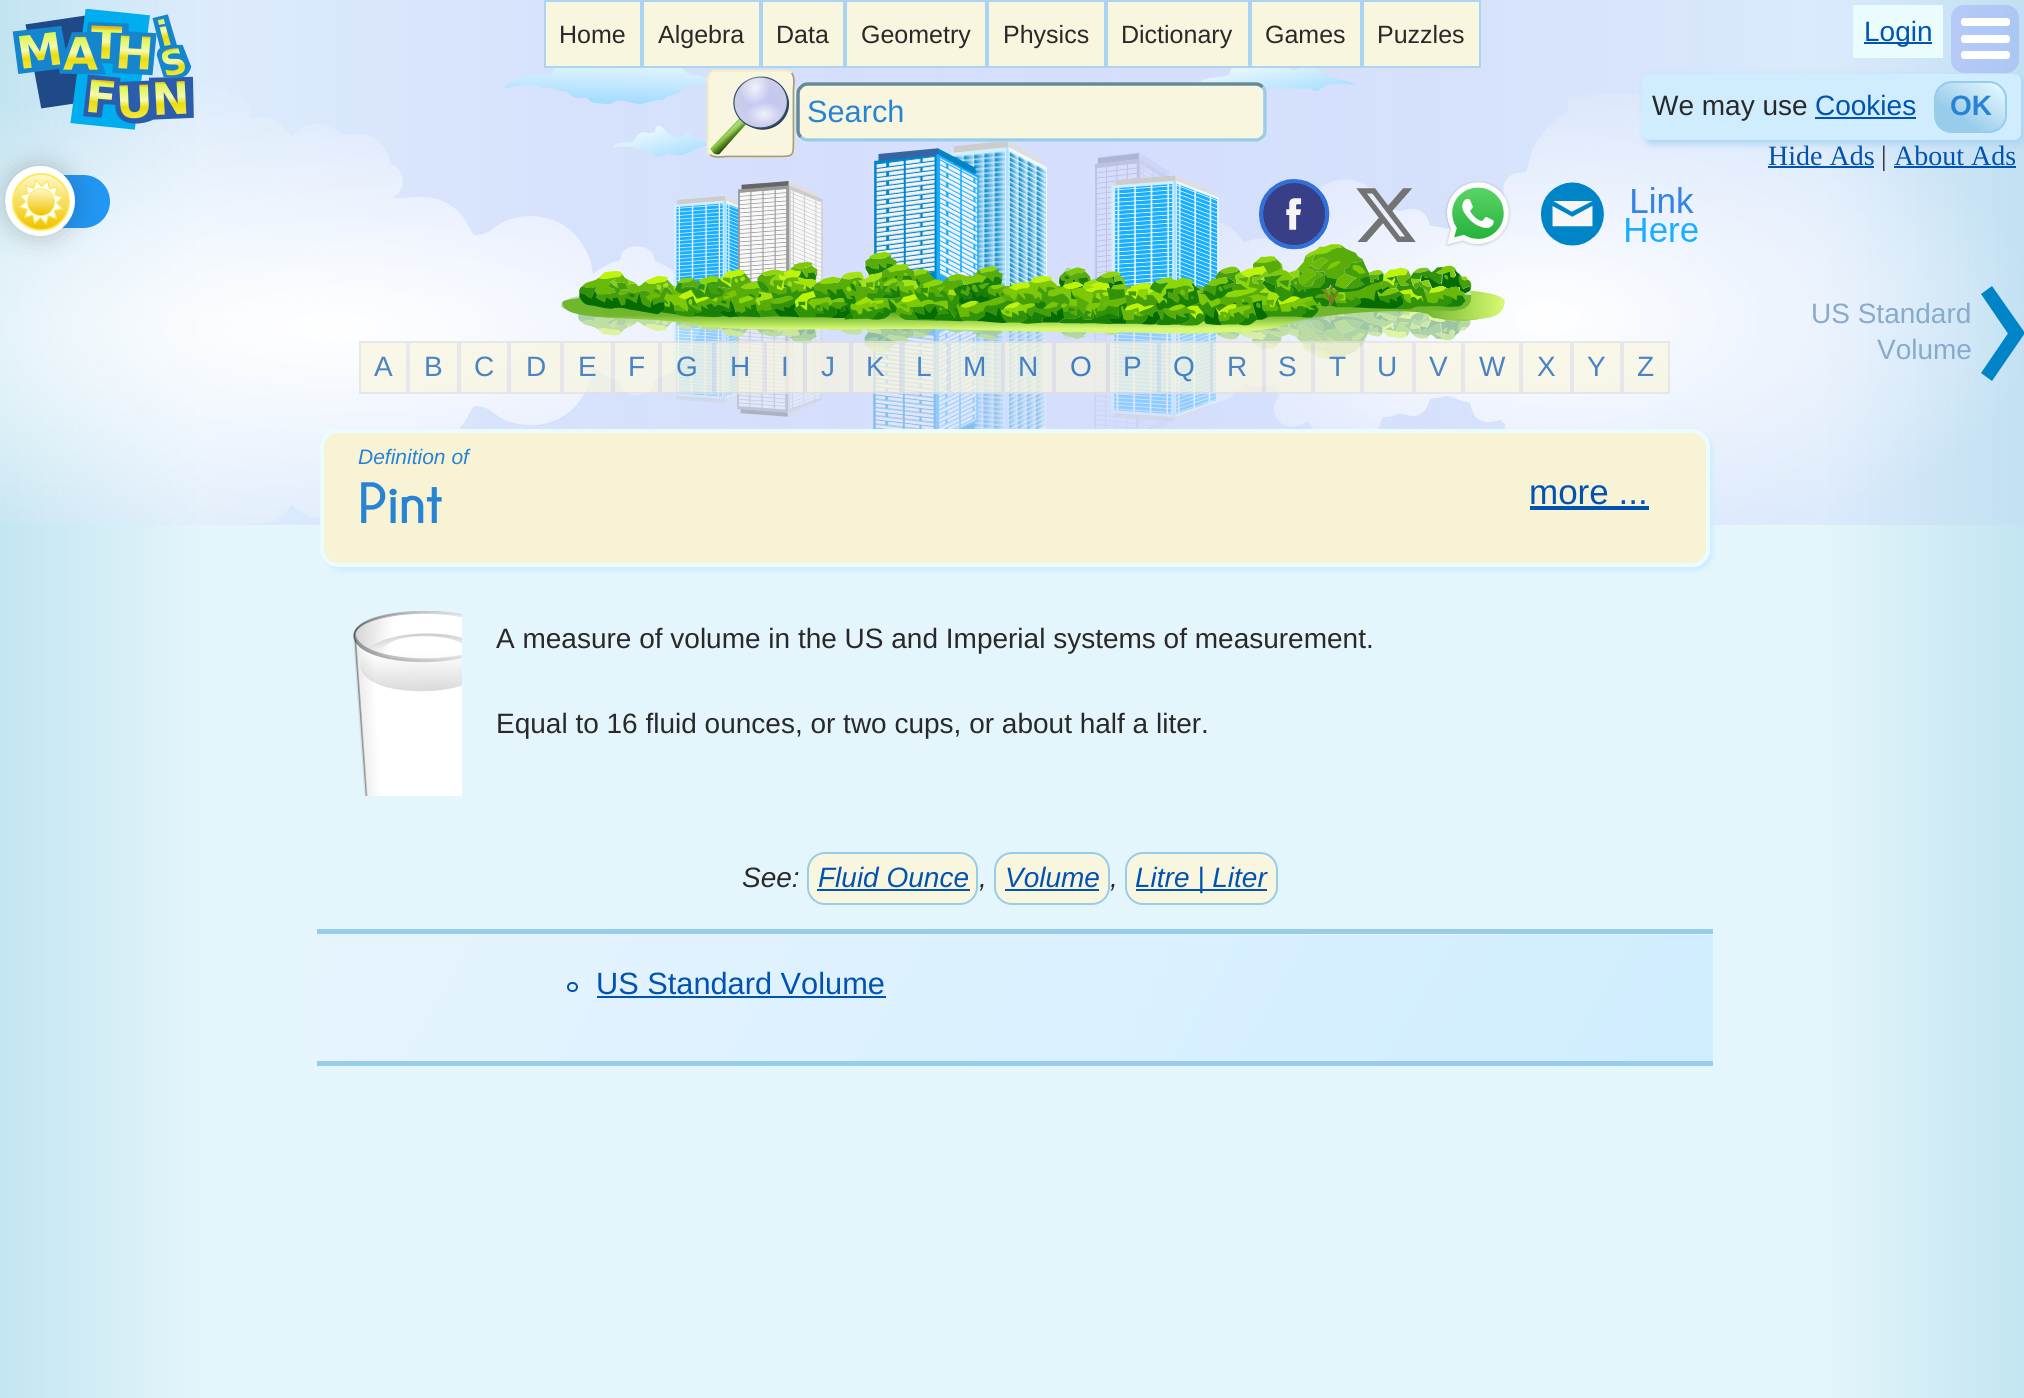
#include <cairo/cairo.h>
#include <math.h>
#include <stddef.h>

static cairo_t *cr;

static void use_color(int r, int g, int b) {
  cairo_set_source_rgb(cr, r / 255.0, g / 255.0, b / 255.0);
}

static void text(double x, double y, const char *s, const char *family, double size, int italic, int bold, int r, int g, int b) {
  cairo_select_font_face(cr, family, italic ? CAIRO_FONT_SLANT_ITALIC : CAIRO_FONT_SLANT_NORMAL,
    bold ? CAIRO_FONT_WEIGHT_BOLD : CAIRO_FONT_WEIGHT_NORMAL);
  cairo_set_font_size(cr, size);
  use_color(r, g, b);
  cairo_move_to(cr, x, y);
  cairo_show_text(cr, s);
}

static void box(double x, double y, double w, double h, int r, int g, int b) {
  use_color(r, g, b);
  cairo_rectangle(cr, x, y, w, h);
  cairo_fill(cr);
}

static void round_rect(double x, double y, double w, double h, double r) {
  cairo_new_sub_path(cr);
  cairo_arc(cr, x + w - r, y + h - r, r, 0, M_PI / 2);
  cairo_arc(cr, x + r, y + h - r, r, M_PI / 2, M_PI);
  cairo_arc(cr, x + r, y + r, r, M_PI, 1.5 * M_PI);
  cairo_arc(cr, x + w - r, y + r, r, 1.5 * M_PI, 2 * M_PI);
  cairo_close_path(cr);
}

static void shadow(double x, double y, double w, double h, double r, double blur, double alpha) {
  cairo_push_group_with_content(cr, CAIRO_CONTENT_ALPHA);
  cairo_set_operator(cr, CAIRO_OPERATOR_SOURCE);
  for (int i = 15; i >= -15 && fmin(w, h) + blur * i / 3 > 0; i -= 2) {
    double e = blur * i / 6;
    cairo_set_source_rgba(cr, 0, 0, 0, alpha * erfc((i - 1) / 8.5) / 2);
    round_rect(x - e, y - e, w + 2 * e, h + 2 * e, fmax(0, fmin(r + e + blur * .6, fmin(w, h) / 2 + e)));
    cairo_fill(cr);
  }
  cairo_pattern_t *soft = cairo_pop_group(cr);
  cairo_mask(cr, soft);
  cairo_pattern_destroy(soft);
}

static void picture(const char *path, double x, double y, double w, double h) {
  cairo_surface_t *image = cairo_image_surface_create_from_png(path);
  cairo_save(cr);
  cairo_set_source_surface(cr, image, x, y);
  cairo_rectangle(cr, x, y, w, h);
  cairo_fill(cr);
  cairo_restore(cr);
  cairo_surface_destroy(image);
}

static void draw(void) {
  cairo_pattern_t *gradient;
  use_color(255, 255, 255);
  cairo_paint(cr);
  gradient = cairo_pattern_create_linear(0, 809, 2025, 809);
  cairo_pattern_add_color_stop_rgba(gradient, 0, 0.761, 0.898, 0.945, 1);
  cairo_pattern_add_color_stop_rgba(gradient, 0.1, 0.894, 0.961, 0.984, 1);
  cairo_pattern_add_color_stop_rgba(gradient, 0.9, 0.894, 0.961, 0.984, 1);
  cairo_pattern_add_color_stop_rgba(gradient, 1, 0.761, 0.898, 0.945, 1);
  cairo_set_source(cr, gradient);
  cairo_pattern_destroy(gradient);
  cairo_rectangle(cr, 0, 0, 2024, 1398);
  cairo_fill(cr);
  picture("img_10.png", 0, 0, 2024, 525);
  use_color(33, 150, 243);
  round_rect(5, 175, 105, 53, 26.5);
  cairo_fill(cr);
  use_color(32, 32, 32);
  shadow(5, 166, 70, 70, 35, 13, 0.24);
  picture("img_01.png", 12, 9, 182, 121);
  use_color(249, 246, 223);
  cairo_rectangle(cr, 545, 1, 96, 66);
  cairo_fill_preserve(cr);
  use_color(171, 212, 242);
  cairo_stroke(cr);
  use_color(249, 246, 223);
  cairo_rectangle(cr, 643, 1, 117, 66);
  cairo_fill_preserve(cr);
  use_color(171, 212, 242);
  cairo_stroke(cr);
  use_color(249, 246, 223);
  cairo_rectangle(cr, 762, 1, 82, 66);
  cairo_fill_preserve(cr);
  use_color(171, 212, 242);
  cairo_stroke(cr);
  use_color(249, 246, 223);
  cairo_rectangle(cr, 846, 1, 140, 66);
  cairo_fill_preserve(cr);
  use_color(171, 212, 242);
  cairo_stroke(cr);
  use_color(249, 246, 223);
  cairo_rectangle(cr, 988, 1, 117, 66);
  cairo_fill_preserve(cr);
  use_color(171, 212, 242);
  cairo_stroke(cr);
  use_color(249, 246, 223);
  cairo_rectangle(cr, 1107, 1, 142, 66);
  cairo_fill_preserve(cr);
  use_color(171, 212, 242);
  cairo_stroke(cr);
  use_color(249, 246, 223);
  cairo_rectangle(cr, 1251, 1, 110, 66);
  cairo_fill_preserve(cr);
  use_color(171, 212, 242);
  cairo_stroke(cr);
  use_color(249, 246, 223);
  cairo_rectangle(cr, 1363, 1, 117, 66);
  cairo_fill_preserve(cr);
  use_color(171, 212, 242);
  cairo_stroke(cr);
  use_color(171, 212, 242);
  shadow(1645, 77, 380, 67, 7, 3.5, 1);
  cairo_set_source_rgba(cr, 0.388, 0.388, 1, 0.2);
  round_rect(1951, 5, 68, 68, 13);
  cairo_fill(cr);
  box(1853, 5, 90, 53, 235, 252, 255);
  box(1864, 42, 68, 2, 0, 83, 179);
  use_color(255, 255, 255);
  round_rect(1961, 18, 49, 8, 3);
  cairo_fill(cr);
  round_rect(1961, 35, 49, 8, 3);
  cairo_fill(cr);
  round_rect(1961, 51, 49, 8, 3);
  cairo_fill(cr);
  use_color(249, 246, 223);
  round_rect(707, 70, 88, 88, 9);
  cairo_fill(cr);
  picture("img_02.png", 710, 76, 80, 79);
  cairo_new_path(cr);
  cairo_move_to(cr, 791.5, 73);
  cairo_curve_to(cr, 795.5, 77, 793.5, 86, 793.5, 90);
  cairo_line_to(cr, 793.5, 137.5);
  cairo_curve_to(cr, 793.5, 157.5, 794.5, 156.5, 774.5, 156.5);
  cairo_line_to(cr, 727, 156.5);
  cairo_curve_to(cr, 723, 156.5, 714, 158.5, 710, 154.5);
  use_color(165, 157, 127);
  cairo_set_line_width(cr, 1.8);
  cairo_stroke(cr);
  cairo_new_path(cr);
  cairo_move_to(cr, 710, 154.5);
  cairo_curve_to(cr, 706, 150.5, 708, 141.5, 708, 137.5);
  cairo_line_to(cr, 708, 90);
  cairo_curve_to(cr, 708, 70, 707, 71, 727, 71);
  cairo_line_to(cr, 774.5, 71);
  cairo_curve_to(cr, 778.5, 71, 787.5, 69, 791.5, 73);
  use_color(247, 236, 190);
  cairo_stroke(cr);
  use_color(249, 246, 223);
  round_rect(796, 82, 471, 60, 11);
  cairo_fill(cr);
  cairo_new_path(cr);
  cairo_move_to(cr, 1262.5, 87);
  cairo_curve_to(cr, 1264.5, 88.5, 1265, 91, 1265, 93.5);
  cairo_line_to(cr, 1265, 130.5);
  cairo_curve_to(cr, 1265, 133, 1264.5, 135.5, 1262.5, 137);
  cairo_curve_to(cr, 1260.5, 139, 1258.5, 140, 1256, 140);
  cairo_line_to(cr, 807.5, 140);
  cairo_curve_to(cr, 805, 140, 802.5, 139, 801, 137);
  use_color(152, 204, 235);
  cairo_set_line_width(cr, 3.5);
  cairo_stroke(cr);
  cairo_new_path(cr);
  cairo_move_to(cr, 801, 137);
  cairo_curve_to(cr, 799, 135.5, 798, 133, 798, 130.5);
  cairo_line_to(cr, 798, 93.5);
  cairo_curve_to(cr, 798, 91, 799, 88.5, 801, 87);
  cairo_curve_to(cr, 802.5, 85, 805, 84, 807.5, 84);
  cairo_line_to(cr, 1256, 84);
  cairo_curve_to(cr, 1258.5, 84, 1260.5, 85, 1262.5, 87);
  use_color(101, 136, 157);
  cairo_stroke(cr);
  use_color(255, 255, 255);
  cairo_arc(cr, 40, 201, 35, 0, 2 * M_PI);
  cairo_fill(cr);
  picture("img_03.png", 12, 173, 58, 58);
  picture("img_04.png", 1259, 179, 71, 71);
  picture("img_05.png", 1356, 188, 60, 54);
  picture("img_06.png", 1445, 181, 66, 66);
  picture("img_07.png", 1540, 182, 64, 64);
  picture("img_08.png", 1626, 187, 72, 55);
  cairo_set_source_rgba(cr, 0.976, 0.965, 0.875, 0.7);
  cairo_rectangle(cr, 359, 341, 49, 53);
  cairo_fill(cr);
  cairo_rectangle(cr, 360, 342, 47, 51);
  cairo_set_source_rgba(cr, 0, 0, 1, 0.07);
  cairo_set_line_width(cr, 2);
  cairo_stroke(cr);
  cairo_set_source_rgba(cr, 0.976, 0.965, 0.875, 0.7);
  cairo_rectangle(cr, 408, 341, 51, 53);
  cairo_fill(cr);
  cairo_rectangle(cr, 409, 342, 49, 51);
  cairo_set_source_rgba(cr, 0, 0, 1, 0.07);
  cairo_stroke(cr);
  cairo_set_source_rgba(cr, 0.976, 0.965, 0.875, 0.7);
  cairo_rectangle(cr, 459, 341, 50, 53);
  cairo_fill(cr);
  cairo_rectangle(cr, 460, 342, 48, 51);
  cairo_set_source_rgba(cr, 0, 0, 1, 0.07);
  cairo_stroke(cr);
  cairo_set_source_rgba(cr, 0.976, 0.965, 0.875, 0.7);
  cairo_rectangle(cr, 510, 342, 51, 51);
  cairo_fill_preserve(cr);
  use_color(230, 229, 234);
  cairo_stroke(cr);
  cairo_set_source_rgba(cr, 0.976, 0.965, 0.875, 0.7);
  cairo_rectangle(cr, 562, 341, 51, 53);
  cairo_fill(cr);
  cairo_rectangle(cr, 563, 342, 49, 51);
  cairo_set_source_rgba(cr, 0, 0, 1, 0.07);
  cairo_stroke(cr);
  cairo_set_source_rgba(cr, 0.976, 0.965, 0.875, 0.7);
  cairo_rectangle(cr, 613, 341, 47, 53);
  cairo_fill(cr);
  cairo_rectangle(cr, 614, 342, 45, 51);
  cairo_set_source_rgba(cr, 0, 0, 1, 0.07);
  cairo_stroke(cr);
  cairo_set_source_rgba(cr, 0.976, 0.965, 0.875, 0.7);
  cairo_rectangle(cr, 660, 341, 54, 53);
  cairo_fill(cr);
  cairo_rectangle(cr, 661, 342, 52, 51);
  cairo_set_source_rgba(cr, 0, 0, 1, 0.07);
  cairo_stroke(cr);
  cairo_set_source_rgba(cr, 0.976, 0.965, 0.875, 0.7);
  cairo_rectangle(cr, 714, 341, 51, 53);
  cairo_fill(cr);
  cairo_rectangle(cr, 715, 342, 49, 51);
  cairo_set_source_rgba(cr, 0, 0, 1, 0.07);
  cairo_stroke(cr);
  cairo_set_source_rgba(cr, 0.976, 0.965, 0.875, 0.7);
  cairo_rectangle(cr, 765, 341, 40, 53);
  cairo_fill(cr);
  cairo_rectangle(cr, 766, 342, 38, 51);
  cairo_set_source_rgba(cr, 0, 0, 1, 0.07);
  cairo_stroke(cr);
  cairo_set_source_rgba(cr, 0.976, 0.965, 0.875, 0.7);
  cairo_rectangle(cr, 805, 341, 46, 53);
  cairo_fill(cr);
  cairo_rectangle(cr, 806, 342, 44, 51);
  cairo_set_source_rgba(cr, 0, 0, 1, 0.07);
  cairo_stroke(cr);
  cairo_set_source_rgba(cr, 0.976, 0.965, 0.875, 0.7);
  cairo_rectangle(cr, 851, 341, 50, 53);
  cairo_fill(cr);
  cairo_rectangle(cr, 852, 342, 48, 51);
  cairo_set_source_rgba(cr, 0, 0, 1, 0.07);
  cairo_stroke(cr);
  cairo_set_source_rgba(cr, 0.976, 0.965, 0.875, 0.7);
  cairo_rectangle(cr, 901, 341, 48, 53);
  cairo_fill(cr);
  cairo_rectangle(cr, 902, 342, 46, 51);
  cairo_set_source_rgba(cr, 0, 0, 1, 0.07);
  cairo_stroke(cr);
  cairo_set_source_rgba(cr, 0.976, 0.965, 0.875, 0.7);
  cairo_rectangle(cr, 949, 341, 54, 53);
  cairo_fill(cr);
  cairo_rectangle(cr, 950, 342, 52, 51);
  cairo_set_source_rgba(cr, 0, 0, 1, 0.07);
  cairo_stroke(cr);
  cairo_set_source_rgba(cr, 0.976, 0.965, 0.875, 0.7);
  cairo_rectangle(cr, 1003, 341, 51, 53);
  cairo_fill(cr);
  cairo_rectangle(cr, 1004, 342, 49, 51);
  cairo_set_source_rgba(cr, 0, 0, 1, 0.07);
  cairo_stroke(cr);
  cairo_set_source_rgba(cr, 0.976, 0.965, 0.875, 0.7);
  cairo_rectangle(cr, 1054, 341, 54, 53);
  cairo_fill(cr);
  cairo_rectangle(cr, 1055, 342, 52, 51);
  cairo_set_source_rgba(cr, 0, 0, 1, 0.07);
  cairo_stroke(cr);
  cairo_set_source_rgba(cr, 0.976, 0.965, 0.875, 0.7);
  cairo_rectangle(cr, 1108, 341, 51, 53);
  cairo_fill(cr);
  cairo_rectangle(cr, 1109, 342, 49, 51);
  cairo_set_source_rgba(cr, 0, 0, 1, 0.07);
  cairo_stroke(cr);
  cairo_set_source_rgba(cr, 0.976, 0.965, 0.875, 0.7);
  cairo_rectangle(cr, 1159, 341, 52, 53);
  cairo_fill(cr);
  cairo_rectangle(cr, 1160, 342, 50, 51);
  cairo_set_source_rgba(cr, 0, 0, 1, 0.07);
  cairo_stroke(cr);
  cairo_set_source_rgba(cr, 0.976, 0.965, 0.875, 0.7);
  cairo_rectangle(cr, 1211, 341, 53, 53);
  cairo_fill(cr);
  cairo_rectangle(cr, 1212, 342, 51, 51);
  cairo_set_source_rgba(cr, 0, 0, 1, 0.07);
  cairo_stroke(cr);
  cairo_set_source_rgba(cr, 0.976, 0.965, 0.875, 0.7);
  cairo_rectangle(cr, 1264, 341, 49, 53);
  cairo_fill(cr);
  cairo_rectangle(cr, 1265, 342, 47, 51);
  cairo_set_source_rgba(cr, 0, 0, 1, 0.07);
  cairo_stroke(cr);
  cairo_set_source_rgba(cr, 0.976, 0.965, 0.875, 0.7);
  cairo_rectangle(cr, 1313, 341, 49, 53);
  cairo_fill(cr);
  cairo_rectangle(cr, 1314, 342, 47, 51);
  cairo_set_source_rgba(cr, 0, 0, 1, 0.07);
  cairo_stroke(cr);
  cairo_set_source_rgba(cr, 0.976, 0.965, 0.875, 0.7);
  cairo_rectangle(cr, 1362, 341, 52, 53);
  cairo_fill(cr);
  cairo_rectangle(cr, 1363, 342, 50, 51);
  cairo_set_source_rgba(cr, 0, 0, 1, 0.07);
  cairo_stroke(cr);
  cairo_set_source_rgba(cr, 0.976, 0.965, 0.875, 0.7);
  cairo_rectangle(cr, 1414, 341, 49, 53);
  cairo_fill(cr);
  cairo_rectangle(cr, 1415, 342, 47, 51);
  cairo_set_source_rgba(cr, 0, 0, 1, 0.07);
  cairo_stroke(cr);
  cairo_set_source_rgba(cr, 0.976, 0.965, 0.875, 0.7);
  cairo_rectangle(cr, 1463, 341, 58, 53);
  cairo_fill(cr);
  cairo_rectangle(cr, 1464, 342, 56, 51);
  cairo_set_source_rgba(cr, 0, 0, 1, 0.07);
  cairo_stroke(cr);
  cairo_set_source_rgba(cr, 0.976, 0.965, 0.875, 0.7);
  cairo_rectangle(cr, 1521, 341, 51, 53);
  cairo_fill(cr);
  cairo_rectangle(cr, 1522, 342, 49, 51);
  cairo_set_source_rgba(cr, 0, 0, 1, 0.07);
  cairo_stroke(cr);
  cairo_set_source_rgba(cr, 0.976, 0.965, 0.875, 0.7);
  cairo_rectangle(cr, 1572, 341, 50, 53);
  cairo_fill(cr);
  cairo_rectangle(cr, 1573, 342, 48, 51);
  cairo_set_source_rgba(cr, 0, 0, 1, 0.07);
  cairo_stroke(cr);
  cairo_set_source_rgba(cr, 0.976, 0.965, 0.875, 0.7);
  cairo_rectangle(cr, 1622, 341, 48, 53);
  cairo_fill(cr);
  cairo_rectangle(cr, 1623, 342, 46, 51);
  cairo_set_source_rgba(cr, 0, 0, 1, 0.07);
  cairo_stroke(cr);
  use_color(207, 237, 255);
  shadow(324, 432, 1389, 139, 18, 2, 1);
  use_color(248, 243, 213);
  round_rect(322, 431, 1386, 134, 16);
  cairo_fill_preserve(cr);
  use_color(235, 252, 255);
  cairo_set_line_width(cr, 4);
  cairo_stroke(cr);
  box(1530, 506, 119, 4, 0, 83, 179);
  picture("img_09.png", 353, 611, 109, 185);
  use_color(249, 246, 223);
  round_rect(808, 853, 169, 51, 17);
  cairo_fill_preserve(cr);
  use_color(152, 204, 235);
  cairo_set_line_width(cr, 2);
  cairo_stroke(cr);
  box(817, 889, 153, 2, 0, 83, 179);
  use_color(249, 246, 223);
  round_rect(995, 853, 114, 51, 17);
  cairo_fill_preserve(cr);
  use_color(152, 204, 235);
  cairo_stroke(cr);
  box(1005, 889, 94, 2, 0, 83, 179);
  use_color(249, 246, 223);
  round_rect(1126, 853, 151, 51, 17);
  cairo_fill_preserve(cr);
  use_color(152, 204, 235);
  cairo_stroke(cr);
  box(1136, 889, 131, 2, 0, 83, 179);
  gradient = cairo_pattern_create_linear(464, 679, 1566, 1316);
  cairo_pattern_add_color_stop_rgba(gradient, 0, 0.902, 0.957, 0.996, 1);
  cairo_pattern_add_color_stop_rgba(gradient, 1, 0.812, 0.929, 1, 1);
  cairo_set_source(cr, gradient);
  cairo_pattern_destroy(gradient);
  cairo_rectangle(cr, 317, 935, 1396, 126);
  cairo_fill(cr);
  box(317, 929, 1396, 5, 152, 204, 235);
  box(317, 1061, 1396, 5, 152, 204, 235);
  round_rect(568, 983, 9, 8, 4);
  use_color(0, 83, 179);
  cairo_stroke(cr);
  box(597, 996, 289, 2, 0, 83, 179);
  use_color(207, 237, 255);
  round_rect(1642, 74, 379, 66, 7);
  cairo_fill(cr);
  box(1815, 117, 101, 2, 0, 83, 179);
  cairo_save(cr);
  round_rect(1934, 81, 73, 52, 18);
  cairo_clip(cr);
  gradient = cairo_pattern_create_linear(1947, 140, 1994, 74);
  cairo_pattern_add_color_stop_rgba(gradient, 0, 0.596, 0.8, 0.922, 1);
  cairo_pattern_add_color_stop_rgba(gradient, 0.3, 0.596, 0.8, 0.922, 1);
  cairo_pattern_add_color_stop_rgba(gradient, 1, 0.922, 0.988, 1, 1);
  cairo_set_source(cr, gradient);
  cairo_pattern_destroy(gradient);
  cairo_rectangle(cr, 1936, 82, 70, 49);
  cairo_fill(cr);
  cairo_restore(cr);
  round_rect(1935, 82, 71, 50, 17);
  use_color(152, 204, 235);
  cairo_stroke(cr);
  box(1768, 166, 106, 2, 0, 83, 179);
  box(1894, 166, 122, 2, 0, 83, 179);
  use_color(0, 132, 200);
  cairo_new_path(cr);
  cairo_move_to(cr, 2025, 333);
  cairo_line_to(cr, 1992, 286);
  cairo_line_to(cr, 1981, 294);
  cairo_line_to(cr, 2013, 341);
  cairo_close_path(cr);
  cairo_fill(cr);
  cairo_new_path(cr);
  cairo_move_to(cr, 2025, 333);
  cairo_line_to(cr, 1992, 381);
  cairo_line_to(cr, 1981, 373);
  cairo_line_to(cr, 2013, 326);
  cairo_close_path(cr);
  cairo_fill(cr);
  text(559, 43, "Home", "Liberation Sans", 25, 0, 0, 41, 41, 41);
  text(658, 43, "Algebra", "Liberation Sans", 25, 0, 0, 41, 41, 41);
  text(776, 43, "Data", "Liberation Sans", 25, 0, 0, 41, 41, 41);
  text(861, 43, "Geometry", "Liberation Sans", 25, 0, 0, 41, 41, 41);
  text(1003, 43, "Physics", "Liberation Sans", 25, 0, 0, 41, 41, 41);
  text(1121, 43, "Dictionary", "Liberation Sans", 25, 0, 0, 41, 41, 41);
  text(1265, 43, "Games", "Liberation Sans", 25, 0, 0, 41, 41, 41);
  text(1377, 43, "Puzzles", "Liberation Sans", 25, 0, 0, 41, 41, 41);
  text(1864, 41, "Login", "Liberation Sans", 28, 0, 0, 0, 83, 179);
  text(807, 122, "Search", "Liberation Sans", 30.75, 0, 0, 39, 132, 213);
  text(374, 376, "A", "Liberation Sans", 28, 0, 0, 75, 132, 195);
  text(424, 376, "B", "Liberation Sans", 28, 0, 0, 75, 132, 195);
  text(474, 376, "C", "Liberation Sans", 28, 0, 0, 75, 132, 195);
  text(526, 376, "D", "Liberation Sans", 28, 0, 0, 75, 132, 195);
  text(578, 376, "E", "Liberation Sans", 28, 0, 0, 75, 132, 195);
  text(628, 376, "F", "Liberation Sans", 28, 0, 0, 71, 131, 201);
  text(676, 376, "G", "Liberation Sans", 28, 0, 0, 68, 129, 195);
  text(730, 376, "H", "Liberation Sans", 28, 0, 0, 68, 129, 195);
  text(781, 376, "I", "Liberation Sans", 28, 0, 0, 75, 132, 195);
  text(821, 376, "J", "Liberation Sans", 28, 0, 0, 75, 132, 195);
  text(866, 376, "K", "Liberation Sans", 28, 0, 0, 75, 132, 195);
  text(916, 376, "L", "Liberation Sans", 28, 0, 0, 75, 132, 195);
  text(963, 376, "M", "Liberation Sans", 28, 0, 0, 68, 129, 195);
  text(1018, 376, "N", "Liberation Sans", 28, 0, 0, 68, 129, 195);
  text(1070, 376, "O", "Liberation Sans", 28, 0, 0, 64, 125, 201);
  text(1123, 376, "P", "Liberation Sans", 28, 0, 0, 68, 129, 195);
  text(1173, 376, "Q", "Liberation Sans", 28, 0, 0, 68, 129, 195);
  text(1227, 376, "R", "Liberation Sans", 28, 0, 0, 75, 132, 195);
  text(1278, 376, "S", "Liberation Sans", 28, 0, 0, 75, 132, 195);
  text(1329, 376, "T", "Liberation Sans", 28, 0, 0, 75, 132, 195);
  text(1377, 376, "U", "Liberation Sans", 28, 0, 0, 75, 132, 195);
  text(1429, 376, "V", "Liberation Sans", 28, 0, 0, 75, 132, 195);
  text(1479, 376, "W", "Liberation Sans", 28, 0, 0, 75, 132, 195);
  text(1537, 376, "X", "Liberation Sans", 28, 0, 0, 75, 132, 195);
  text(1587, 376, "Y", "Liberation Sans", 28, 0, 0, 75, 132, 195);
  text(1637, 376, "Z", "Liberation Sans", 28, 0, 0, 75, 132, 195);
  text(358, 464, "Definition of", "Liberation Sans", 21, 1, 0, 39, 132, 213);
  text(358, 523, "Pint", "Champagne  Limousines", 58, 0, 1, 39, 132, 213);
  text(1529, 504, "more ...", "Liberation Sans", 35, 0, 0, 0, 83, 179);
  text(496, 648, "A measure of volume in the US and Imperial systems of measurement.", "Liberation Sans", 28, 0, 0, 41, 41, 41);
  text(496, 733, "Equal to 16 fluid ounces, or two cups, or about half a liter.", "Liberation Sans", 28, 0, 0, 41, 41, 41);
  text(742, 887, "See:", "Liberation Sans", 28, 1, 0, 41, 41, 41);
  text(818, 887, "Fluid Ounce", "Liberation Sans", 28, 1, 0, 0, 83, 179);
  text(979, 887, ",", "Liberation Sans", 28, 1, 0, 41, 41, 41);
  text(1005, 887, "Volume", "Liberation Sans", 28, 1, 0, 0, 83, 179);
  text(1110, 887, ",", "Liberation Sans", 28, 1, 0, 41, 41, 41);
  text(1135, 887, "Litre | Liter", "Liberation Sans", 28, 1, 0, 0, 83, 179);
  text(596, 994, "US Standard Volume", "Liberation Sans", 30.75, 0, 0, 0, 83, 179);
  text(1652, 115, "We may use", "Liberation Sans", 28, 0, 0, 41, 41, 41);
  text(1815, 115, "Cookies", "Liberation Sans", 28, 0, 0, 0, 83, 179);
  text(1950, 115, "OK", "Liberation Sans", 28, 0, 1, 39, 132, 213);
  text(1768, 165, "Hide Ads", "Liberation Serif", 28, 0, 0, 0, 83, 179);
  text(1881, 165, "|", "Liberation Serif", 28, 0, 0, 41, 41, 41);
  text(1894, 165, "About Ads", "Liberation Serif", 28, 0, 0, 0, 83, 179);
  text(1811, 323, "US Standard", "Liberation Sans", 28, 0, 0, 136, 170, 204);
  text(1877, 359, "Volume", "Liberation Sans", 28, 0, 0, 136, 170, 204);
}

int main(void) {
  cairo_surface_t *surface = cairo_image_surface_create(CAIRO_FORMAT_RGB24, 2024, 1398);
  cr = cairo_create(surface);
  cairo_font_options_t *options = cairo_font_options_create();
  cairo_font_options_set_hint_metrics(options, CAIRO_HINT_METRICS_OFF);
  cairo_font_options_set_hint_style(options, CAIRO_HINT_STYLE_NONE);
  cairo_set_font_options(cr, options);
  cairo_set_miter_limit(cr, 4);
  draw();
  cairo_surface_write_to_png(surface, "out.png");
  cairo_font_options_destroy(options);
  cairo_destroy(cr);
  cairo_surface_destroy(surface);
  return 0;
}
